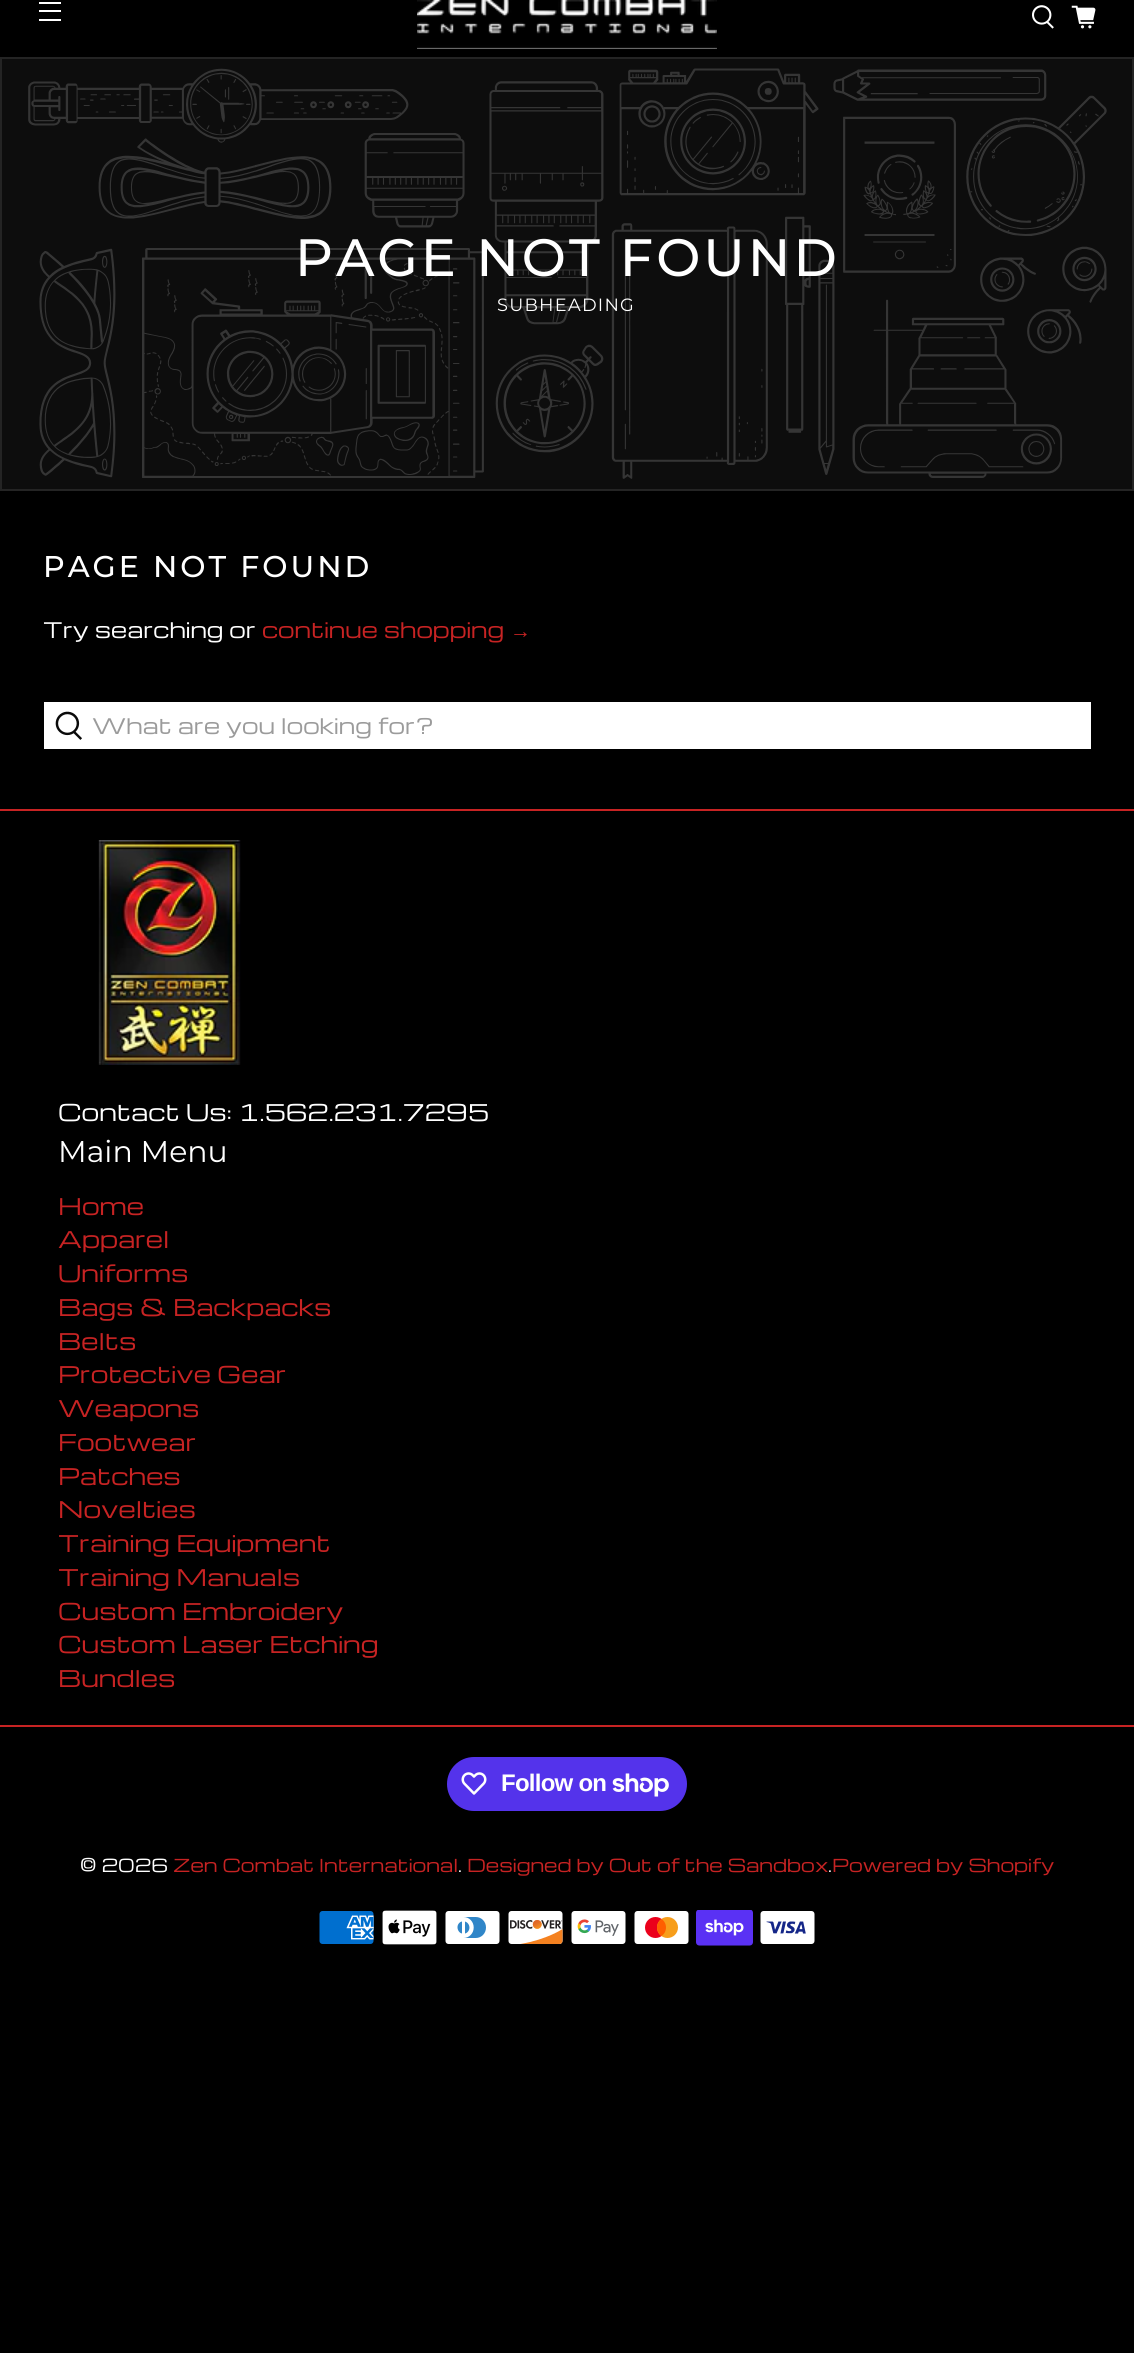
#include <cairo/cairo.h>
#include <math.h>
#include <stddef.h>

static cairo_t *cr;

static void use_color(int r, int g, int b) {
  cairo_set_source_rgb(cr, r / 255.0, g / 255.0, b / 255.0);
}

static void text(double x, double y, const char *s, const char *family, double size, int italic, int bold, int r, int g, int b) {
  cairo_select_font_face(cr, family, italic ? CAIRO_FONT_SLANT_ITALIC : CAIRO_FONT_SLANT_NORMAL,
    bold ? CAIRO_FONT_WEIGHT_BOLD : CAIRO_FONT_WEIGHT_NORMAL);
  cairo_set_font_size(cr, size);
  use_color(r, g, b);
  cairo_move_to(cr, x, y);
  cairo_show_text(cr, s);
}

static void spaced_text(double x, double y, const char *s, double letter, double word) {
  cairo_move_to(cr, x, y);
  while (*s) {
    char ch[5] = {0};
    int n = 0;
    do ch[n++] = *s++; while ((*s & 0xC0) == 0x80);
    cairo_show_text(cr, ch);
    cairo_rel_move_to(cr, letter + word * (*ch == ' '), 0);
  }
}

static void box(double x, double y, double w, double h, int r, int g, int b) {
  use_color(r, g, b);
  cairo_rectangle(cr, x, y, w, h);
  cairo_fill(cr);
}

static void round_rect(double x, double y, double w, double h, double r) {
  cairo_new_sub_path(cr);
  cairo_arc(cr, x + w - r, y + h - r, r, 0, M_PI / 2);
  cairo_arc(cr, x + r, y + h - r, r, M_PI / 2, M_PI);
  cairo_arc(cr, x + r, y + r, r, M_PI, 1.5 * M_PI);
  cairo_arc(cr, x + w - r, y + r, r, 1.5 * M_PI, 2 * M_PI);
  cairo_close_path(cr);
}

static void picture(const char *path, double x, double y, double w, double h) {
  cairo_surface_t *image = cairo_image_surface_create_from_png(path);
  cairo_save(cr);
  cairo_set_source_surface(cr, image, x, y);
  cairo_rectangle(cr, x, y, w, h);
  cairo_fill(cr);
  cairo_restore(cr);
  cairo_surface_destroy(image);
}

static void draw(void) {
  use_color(0, 0, 0);
  cairo_paint(cr);
  box(39, 2, 22, 2, 255, 255, 255);
  box(39, 10, 22, 2, 255, 255, 255);
  box(39, 19, 22, 2, 255, 255, 255);
  picture("img_01.png", 417, 0, 300, 49);
  picture("img_02.png", 1032, 5, 22, 24);
  picture("img_03.png", 1071, 5, 25, 24);
  use_color(13, 13, 13);
  cairo_rectangle(cr, 1, 58, 1132, 432);
  cairo_fill_preserve(cr);
  use_color(36, 36, 36);
  cairo_stroke(cr);
  picture("img_04.png", 28, 68, 1079, 411);
  box(44, 702, 1047, 47, 255, 255, 255);
  picture("img_05.png", 55, 711, 27, 29);
  box(0, 809, 1134, 2, 199, 35, 35);
  box(0, 1725, 1134, 2, 199, 35, 35);
  picture("img_06.png", 98, 840, 143, 225);
  use_color(84, 51, 235);
  round_rect(447, 1757, 240, 54, 27);
  cairo_fill(cr);
  picture("img_07.png", 461, 1772, 26, 23);
  picture("img_08.png", 612, 1773, 57, 24);
  picture("img_09.png", 319, 1911, 55, 33);
  picture("img_10.png", 382, 1910, 55, 35);
  picture("img_11.png", 445, 1911, 55, 33);
  picture("img_12.png", 508, 1911, 55, 33);
  picture("img_13.png", 571, 1911, 55, 33);
  picture("img_14.png", 634, 1911, 55, 33);
  picture("img_15.png", 696, 1910, 57, 36);
  picture("img_16.png", 760, 1911, 55, 33);
  cairo_select_font_face(cr, "Montserrat Medium", CAIRO_FONT_SLANT_NORMAL, CAIRO_FONT_WEIGHT_NORMAL);
  cairo_set_font_size(cr, 52.5);
  use_color(255, 255, 255);
  spaced_text(295, 276, "PAGE NOT FOUND", 3, 0);
  cairo_select_font_face(cr, "Montserrat", CAIRO_FONT_SLANT_NORMAL, CAIRO_FONT_WEIGHT_NORMAL);
  cairo_set_font_size(cr, 17.75);
  spaced_text(497, 311, "SUBHEADING", 1.25, 0);
  cairo_select_font_face(cr, "Montserrat Medium", CAIRO_FONT_SLANT_NORMAL, CAIRO_FONT_WEIGHT_NORMAL);
  cairo_set_font_size(cr, 30);
  spaced_text(43, 577, "PAGE NOT FOUND", 3, 0);
  text(43, 638, "Try searching or", "Michroma", 21, 0, 0, 255, 255, 255);
  text(262, 638, "continue shopping", "Michroma", 21, 0, 0, 199, 35, 35);
  text(510, 638, "→", "Liberation Sans", 21, 0, 0, 199, 35, 35);
  text(92, 734, "What are you looking for?", "Michroma", 21, 0, 0, 155, 155, 155);
  text(58, 1121, "Contact Us: 1.562.231.7295", "Michroma", 22.5, 0, 0, 255, 255, 255);
  text(58, 1162, "Main Menu", "Montserrat", 30, 0, 0, 255, 255, 255);
  text(58, 1215, "Home", "Michroma", 22.5, 0, 0, 199, 35, 35);
  text(58, 1248, "Apparel", "Michroma", 22.5, 0, 0, 199, 35, 35);
  text(58, 1282, "Uniforms", "Michroma", 22.5, 0, 0, 199, 35, 35);
  text(58, 1316, "Bags & Backpacks", "Michroma", 22.5, 0, 0, 199, 35, 35);
  text(58, 1350, "Belts", "Michroma", 22.5, 0, 0, 199, 35, 35);
  text(58, 1383, "Protective Gear", "Michroma", 22.5, 0, 0, 199, 35, 35);
  text(58, 1417, "Weapons", "Michroma", 22.5, 0, 0, 199, 35, 35);
  text(58, 1451, "Footwear", "Michroma", 22.5, 0, 0, 199, 35, 35);
  text(58, 1485, "Patches", "Michroma", 22.5, 0, 0, 199, 35, 35);
  text(58, 1518, "Novelties", "Michroma", 22.5, 0, 0, 199, 35, 35);
  text(58, 1552, "Training Equipment", "Michroma", 22.5, 0, 0, 199, 35, 35);
  text(58, 1586, "Training Manuals", "Michroma", 22.5, 0, 0, 199, 35, 35);
  text(58, 1620, "Custom Embroidery", "Michroma", 22.5, 0, 0, 199, 35, 35);
  text(58, 1653, "Custom Laser Etching", "Michroma", 22.5, 0, 0, 199, 35, 35);
  text(58, 1687, "Bundles", "Michroma", 22.5, 0, 0, 199, 35, 35);
  cairo_select_font_face(cr, "Liberation Sans", CAIRO_FONT_SLANT_NORMAL, CAIRO_FONT_WEIGHT_BOLD);
  cairo_set_font_size(cr, 24);
  use_color(255, 255, 255);
  spaced_text(501, 1791, "Follow on", -0.75, 0);
  text(80, 1872, "© 2026", "Michroma", 17.5, 0, 0, 255, 255, 255);
  text(173, 1872, "Zen Combat International", "Michroma", 17.5, 0, 0, 199, 35, 35);
  text(458, 1872, ".", "Michroma", 17.5, 0, 0, 255, 255, 255);
  text(467, 1872, "Designed by Out of the Sandbox", "Michroma", 17.5, 0, 0, 199, 35, 35);
  text(828, 1872, ".", "Michroma", 17.5, 0, 0, 255, 255, 255);
  text(832, 1872, "Powered by Shopify", "Michroma", 17.5, 0, 0, 199, 35, 35);
}

int main(void) {
  cairo_surface_t *surface = cairo_image_surface_create(CAIRO_FORMAT_RGB24, 1134, 2353);
  cr = cairo_create(surface);
  cairo_font_options_t *options = cairo_font_options_create();
  cairo_font_options_set_hint_metrics(options, CAIRO_HINT_METRICS_OFF);
  cairo_font_options_set_hint_style(options, CAIRO_HINT_STYLE_NONE);
  cairo_set_font_options(cr, options);
  cairo_set_miter_limit(cr, 4);
  draw();
  cairo_surface_write_to_png(surface, "out.png");
  cairo_font_options_destroy(options);
  cairo_destroy(cr);
  cairo_surface_destroy(surface);
  return 0;
}
